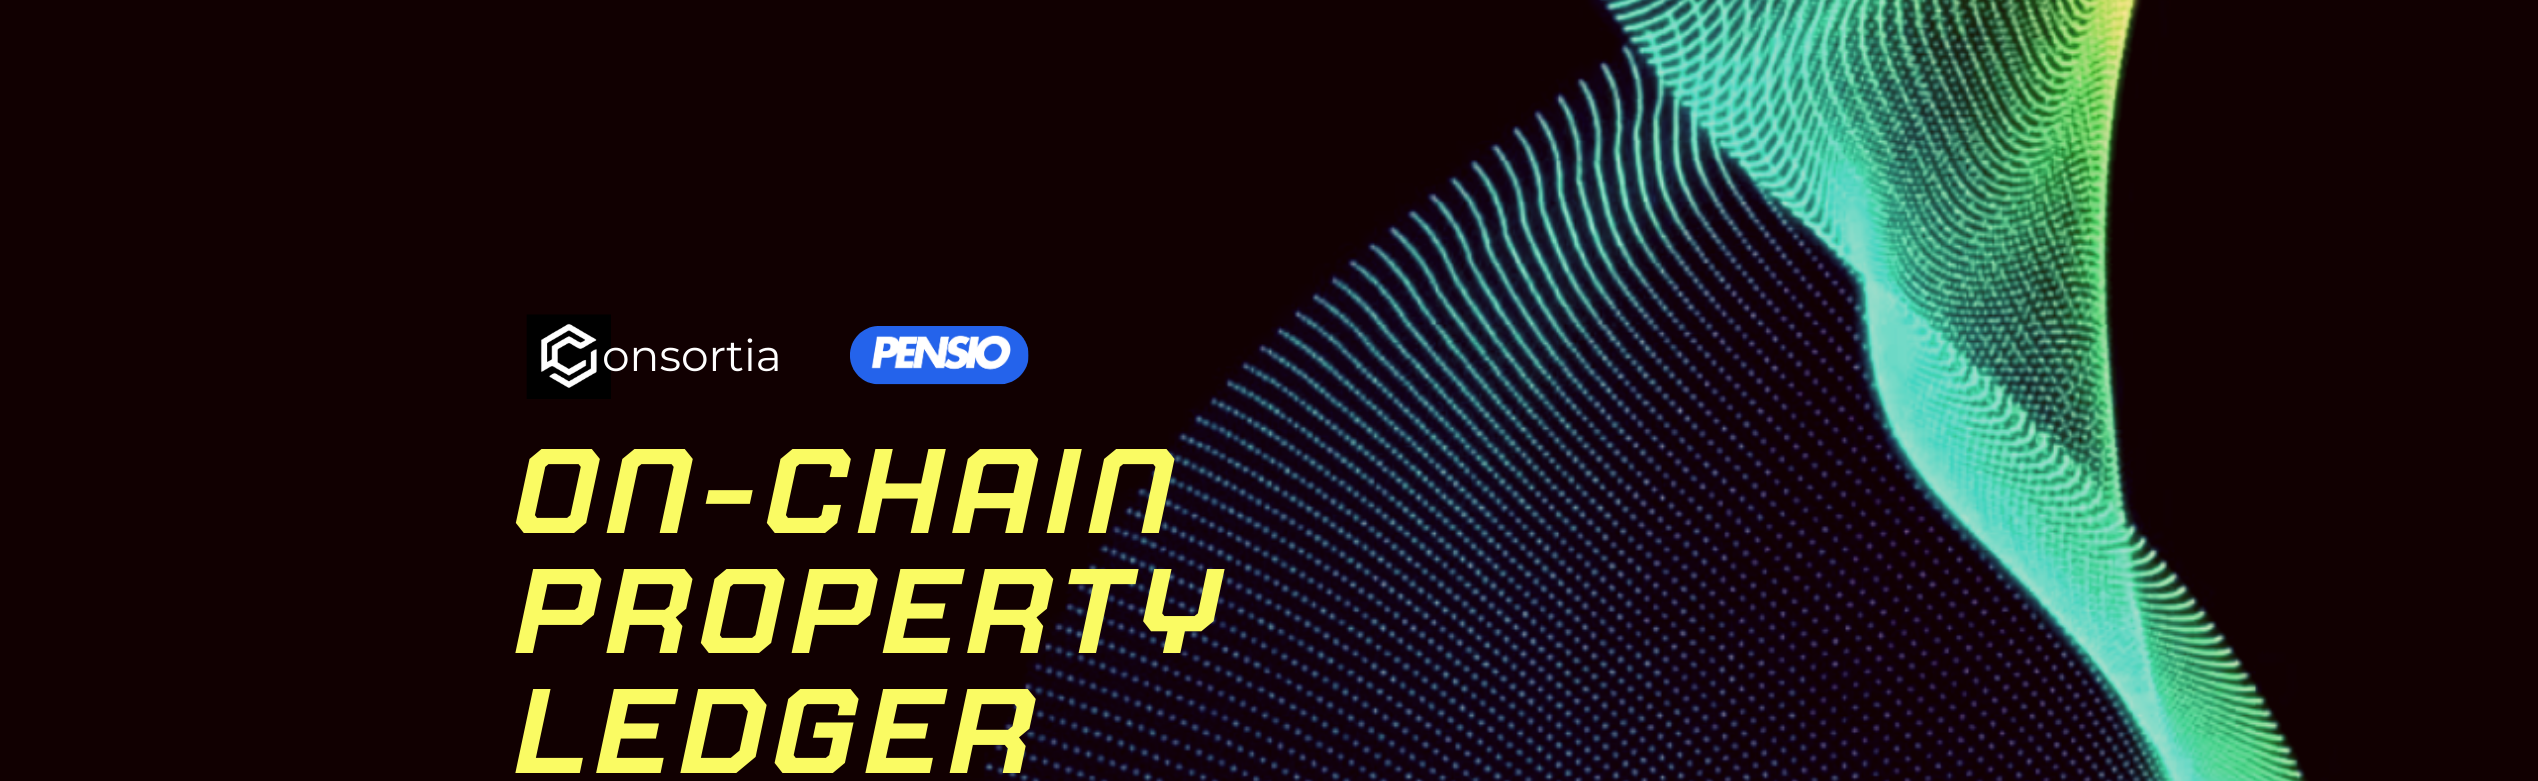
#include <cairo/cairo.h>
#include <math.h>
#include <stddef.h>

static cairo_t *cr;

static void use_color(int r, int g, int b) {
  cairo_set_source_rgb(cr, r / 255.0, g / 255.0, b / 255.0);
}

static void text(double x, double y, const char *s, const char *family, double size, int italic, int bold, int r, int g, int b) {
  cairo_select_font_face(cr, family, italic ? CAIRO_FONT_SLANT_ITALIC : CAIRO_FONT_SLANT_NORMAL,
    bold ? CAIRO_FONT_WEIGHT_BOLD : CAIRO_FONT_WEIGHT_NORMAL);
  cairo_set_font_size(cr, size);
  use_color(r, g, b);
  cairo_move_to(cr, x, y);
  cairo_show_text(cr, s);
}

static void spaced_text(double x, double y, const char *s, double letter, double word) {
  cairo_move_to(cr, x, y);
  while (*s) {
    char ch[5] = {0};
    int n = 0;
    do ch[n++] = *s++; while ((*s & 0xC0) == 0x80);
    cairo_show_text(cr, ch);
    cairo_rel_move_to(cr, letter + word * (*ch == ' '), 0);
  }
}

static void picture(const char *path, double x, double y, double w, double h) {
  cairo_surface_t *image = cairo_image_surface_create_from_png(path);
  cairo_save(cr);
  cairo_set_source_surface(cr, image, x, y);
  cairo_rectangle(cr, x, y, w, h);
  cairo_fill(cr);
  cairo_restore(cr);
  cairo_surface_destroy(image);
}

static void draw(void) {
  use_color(255, 255, 255);
  cairo_paint(cr);
  picture("img_01.png", 0, 0, 2538, 781);
  picture("img_02.png", 526, 314, 85, 85);
  picture("img_03.png", 850, 326, 179, 59);
  text(602, 371, "onsortia", "Montserrat", 44, 0, 0, 255, 255, 255);
  cairo_select_font_face(cr, "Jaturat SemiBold", CAIRO_FONT_SLANT_ITALIC, CAIRO_FONT_WEIGHT_NORMAL);
  cairo_set_font_size(cr, 120);
  use_color(250, 251, 99);
  spaced_text(512, 533, "ON-CHAIN", 3.5, 0);
  spaced_text(512, 653, "PROPERTY", 3.5, 0);
  spaced_text(512, 773, "LEDGER", 3.5, 0);
}

int main(void) {
  cairo_surface_t *surface = cairo_image_surface_create(CAIRO_FORMAT_RGB24, 2538, 781);
  cr = cairo_create(surface);
  cairo_font_options_t *options = cairo_font_options_create();
  cairo_font_options_set_hint_metrics(options, CAIRO_HINT_METRICS_OFF);
  cairo_font_options_set_hint_style(options, CAIRO_HINT_STYLE_NONE);
  cairo_set_font_options(cr, options);
  cairo_set_miter_limit(cr, 4);
  draw();
  cairo_surface_write_to_png(surface, "out.png");
  cairo_font_options_destroy(options);
  cairo_destroy(cr);
  cairo_surface_destroy(surface);
  return 0;
}
